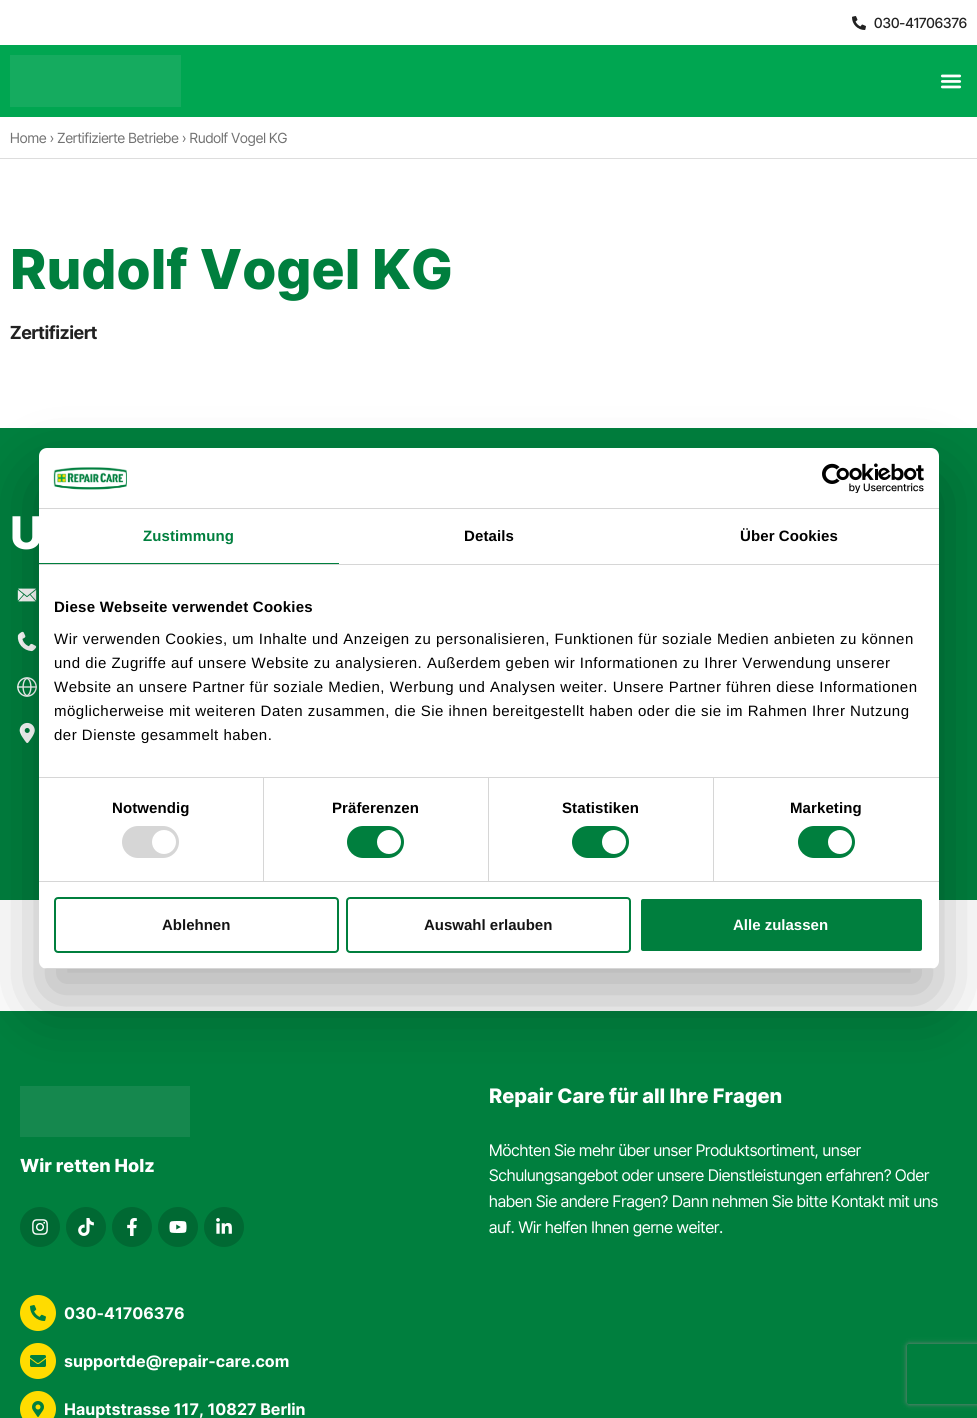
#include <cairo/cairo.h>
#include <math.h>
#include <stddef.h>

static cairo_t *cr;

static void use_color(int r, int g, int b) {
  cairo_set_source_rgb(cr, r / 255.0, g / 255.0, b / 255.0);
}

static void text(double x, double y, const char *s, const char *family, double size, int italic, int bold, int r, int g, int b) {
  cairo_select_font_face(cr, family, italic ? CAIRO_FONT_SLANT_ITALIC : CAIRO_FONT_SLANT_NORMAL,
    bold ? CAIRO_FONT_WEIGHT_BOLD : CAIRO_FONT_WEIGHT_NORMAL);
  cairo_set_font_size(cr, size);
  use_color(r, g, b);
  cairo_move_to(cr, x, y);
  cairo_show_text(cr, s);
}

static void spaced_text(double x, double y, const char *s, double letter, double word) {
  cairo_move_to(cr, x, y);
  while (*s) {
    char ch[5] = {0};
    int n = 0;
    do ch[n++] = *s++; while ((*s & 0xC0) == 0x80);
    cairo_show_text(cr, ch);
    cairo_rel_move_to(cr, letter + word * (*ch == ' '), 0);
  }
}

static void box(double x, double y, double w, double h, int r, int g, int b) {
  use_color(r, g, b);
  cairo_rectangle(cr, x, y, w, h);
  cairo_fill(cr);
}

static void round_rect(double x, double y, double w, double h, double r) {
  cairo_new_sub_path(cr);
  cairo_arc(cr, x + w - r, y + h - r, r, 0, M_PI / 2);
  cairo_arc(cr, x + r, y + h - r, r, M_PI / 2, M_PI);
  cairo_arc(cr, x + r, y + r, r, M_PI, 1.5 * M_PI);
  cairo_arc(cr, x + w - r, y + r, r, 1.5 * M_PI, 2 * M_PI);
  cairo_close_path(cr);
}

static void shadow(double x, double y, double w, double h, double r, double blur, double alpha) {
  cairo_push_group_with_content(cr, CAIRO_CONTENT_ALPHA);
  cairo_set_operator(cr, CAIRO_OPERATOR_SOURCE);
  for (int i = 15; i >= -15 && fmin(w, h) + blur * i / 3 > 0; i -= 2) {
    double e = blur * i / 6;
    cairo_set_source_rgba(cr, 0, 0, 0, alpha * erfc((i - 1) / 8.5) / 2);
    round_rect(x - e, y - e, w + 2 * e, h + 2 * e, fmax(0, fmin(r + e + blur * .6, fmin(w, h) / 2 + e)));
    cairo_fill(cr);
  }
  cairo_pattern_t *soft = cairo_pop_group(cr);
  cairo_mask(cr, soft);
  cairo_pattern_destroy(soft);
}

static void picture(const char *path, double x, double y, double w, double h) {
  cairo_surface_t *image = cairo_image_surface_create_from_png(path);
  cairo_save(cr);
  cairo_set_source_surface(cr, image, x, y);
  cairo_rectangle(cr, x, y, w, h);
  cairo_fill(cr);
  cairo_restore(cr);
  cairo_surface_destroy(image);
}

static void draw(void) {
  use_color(255, 255, 255);
  cairo_paint(cr);
  picture("img_01.png", 852, 16, 14, 14);
  box(0, 45, 977, 72, 0, 166, 81);
  box(10, 55, 171, 52, 21, 171, 95);
  picture("img_02.png", 940, 74, 22, 15);
  box(0, 158, 977, 1, 221, 221, 221);
  box(0, 428, 977, 472, 0, 127, 62);
  picture("img_03.png", 17, 588, 20, 14);
  picture("img_04.png", 17, 631, 20, 21);
  picture("img_05.png", 17, 677, 20, 20);
  picture("img_06.png", 19, 722, 16, 21);
  box(0, 1011, 977, 407, 0, 127, 62);
  box(20, 1086, 170, 51, 21, 136, 78);
  use_color(0, 0, 0);
  shadow(39, 480, 900, 521, 8, 34, 0.3);
  use_color(255, 255, 255);
  round_rect(39, 448, 900, 521, 8);
  cairo_fill(cr);
  box(39, 508, 900, 1, 214, 214, 214);
  picture("img_07.png", 53, 467, 74, 23);
  picture("img_08.png", 822, 463, 102, 30);
  box(39, 564, 900, 1, 214, 214, 214);
  box(39, 563, 300, 1, 0, 127, 62);
  box(39, 777, 900, 1, 214, 214, 214);
  box(39, 881, 900, 1, 214, 214, 214);
  box(263, 778, 1, 103, 214, 214, 214);
  round_rect(122, 826, 57, 32, 16);
  cairo_fill(cr);
  use_color(255, 255, 255);
  cairo_arc(cr, 164, 842, 12, 0, 2 * M_PI);
  cairo_fill(cr);
  box(488, 778, 1, 103, 214, 214, 214);
  use_color(0, 127, 62);
  round_rect(347, 826, 57, 32, 16);
  cairo_fill(cr);
  use_color(255, 255, 255);
  cairo_arc(cr, 389, 842, 12, 0, 2 * M_PI);
  cairo_fill(cr);
  box(713, 778, 1, 103, 214, 214, 214);
  use_color(0, 127, 62);
  round_rect(572, 826, 57, 32, 16);
  cairo_fill(cr);
  use_color(255, 255, 255);
  cairo_arc(cr, 614, 842, 12, 0, 2 * M_PI);
  cairo_fill(cr);
  use_color(0, 127, 62);
  round_rect(798, 826, 57, 32, 16);
  cairo_fill(cr);
  use_color(255, 255, 255);
  cairo_arc(cr, 840, 842, 12, 0, 2 * M_PI);
  cairo_fill(cr);
  cairo_save(cr);
  round_rect(39, 448, 900, 521, 8);
  cairo_clip(cr);
  box(39, 968, 900, 1, 214, 214, 214);
  cairo_restore(cr);
  round_rect(55, 898, 283, 54, 3);
  use_color(0, 127, 62);
  cairo_stroke(cr);
  round_rect(347, 898, 283, 54, 3);
  cairo_stroke(cr);
  round_rect(640, 898, 283, 54, 3);
  cairo_fill_preserve(cr);
  use_color(255, 255, 255);
  cairo_stroke(cr);
  use_color(0, 105, 51);
  cairo_arc(cr, 40, 1227, 20, 0, 2 * M_PI);
  cairo_fill(cr);
  picture("img_09.png", 32, 1219, 16, 16);
  cairo_arc(cr, 86, 1227, 20, 0, 2 * M_PI);
  cairo_fill(cr);
  picture("img_10.png", 78, 1218, 16, 18);
  cairo_arc(cr, 132, 1227, 20, 0, 2 * M_PI);
  cairo_fill(cr);
  picture("img_11.png", 127, 1218, 10, 18);
  cairo_arc(cr, 178, 1227, 20, 0, 2 * M_PI);
  cairo_fill(cr);
  picture("img_12.png", 169, 1221, 18, 12);
  cairo_arc(cr, 224, 1227, 20, 0, 2 * M_PI);
  cairo_fill(cr);
  picture("img_13.png", 216, 1218, 16, 16);
  use_color(255, 220, 0);
  cairo_arc(cr, 38, 1313, 18, 0, 2 * M_PI);
  cairo_fill(cr);
  picture("img_14.png", 30, 1305, 16, 16);
  cairo_arc(cr, 38, 1361, 18, 0, 2 * M_PI);
  cairo_fill(cr);
  picture("img_15.png", 30, 1355, 16, 12);
  cairo_arc(cr, 38, 1409, 18, 0, 2 * M_PI);
  cairo_fill(cr);
  picture("img_16.png", 32, 1401, 12, 16);
  cairo_save(cr);
  cairo_set_fill_rule(cr, CAIRO_FILL_RULE_EVEN_ODD);
  cairo_new_path(cr);
  cairo_move_to(cr, 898, 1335);
  cairo_line_to(cr, 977, 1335);
  cairo_line_to(cr, 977, 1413);
  cairo_line_to(cr, 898, 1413);
  cairo_close_path(cr);
  cairo_move_to(cr, 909, 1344);
  cairo_line_to(cr, 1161, 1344);
  cairo_curve_to(cr, 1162, 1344, 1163, 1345, 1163, 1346);
  cairo_line_to(cr, 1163, 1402);
  cairo_curve_to(cr, 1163, 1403, 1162, 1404, 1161, 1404);
  cairo_line_to(cr, 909, 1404);
  cairo_curve_to(cr, 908, 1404, 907, 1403, 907, 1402);
  cairo_line_to(cr, 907, 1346);
  cairo_curve_to(cr, 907, 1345, 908, 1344, 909, 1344);
  cairo_close_path(cr);
  cairo_clip(cr);
  use_color(128, 128, 128);
  shadow(907, 1344, 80, 60, 2, 2.5, 1);
  cairo_restore(cr);
  text(874, 28, "030-41706376", "Inter Tight Medium", 14, 0, 0, 34, 34, 34);
  text(10, 143, "Home › Zertifizierte Betriebe › Rudolf Vogel KG", "Inter Tight", 14, 0, 0, 114, 114, 114);
  text(10, 289, "Rudolf Vogel KG", "Inter ExtraBold", 55, 0, 0, 0, 127, 62);
  text(10, 339, "Zertifiziert", "Inter Tight", 18, 0, 1, 34, 34, 34);
  text(10, 549, "U", "Inter ExtraBold", 45, 0, 0, 255, 255, 255);
  cairo_select_font_face(cr, "Liberation Sans", CAIRO_FONT_SLANT_NORMAL, CAIRO_FONT_WEIGHT_BOLD);
  cairo_set_font_size(cr, 15);
  use_color(0, 127, 62);
  spaced_text(143, 541, "Zustimmung", 0.1, 0);
  use_color(0, 0, 0);
  spaced_text(464, 541, "Details", 0.1, 0);
  spaced_text(740, 541, "Über Cookies", 0.1, 0);
  spaced_text(54, 612, "Diese Webseite verwendet Cookies", 0.25, 0);
  cairo_select_font_face(cr, "Liberation Sans", CAIRO_FONT_SLANT_NORMAL, CAIRO_FONT_WEIGHT_NORMAL);
  spaced_text(54, 644, "Wir verwenden Cookies, um Inhalte und Anzeigen zu personalisieren, Funktionen für soziale Medien anbieten zu können", 0.5, 0);
  spaced_text(54, 668, "und die Zugriffe auf unsere Website zu analysieren. Außerdem geben wir Informationen zu Ihrer Verwendung unserer", 0.5, 0);
  spaced_text(54, 692, "Website an unsere Partner für soziale Medien, Werbung und Analysen weiter. Unsere Partner führen diese Informationen", 0.5, 0);
  spaced_text(54, 716, "möglicherweise mit weiteren Daten zusammen, die Sie ihnen bereitgestellt haben oder die sie im Rahmen Ihrer Nutzung", 0.5, 0);
  spaced_text(54, 740, "der Dienste gesammelt haben.", 0.5, 0);
  cairo_select_font_face(cr, "Liberation Sans", CAIRO_FONT_SLANT_NORMAL, CAIRO_FONT_WEIGHT_BOLD);
  spaced_text(112, 813, "Notwendig", 0.1, 0);
  spaced_text(332, 813, "Präferenzen", 0.1, 0);
  spaced_text(562, 813, "Statistiken", 0.1, 0);
  spaced_text(790, 813, "Marketing", 0.1, 0);
  text(162, 930, "Ablehnen", "Liberation Sans", 15, 0, 1, 20, 20, 20);
  text(424, 930, "Auswahl erlauben", "Liberation Sans", 15, 0, 1, 20, 20, 20);
  text(733, 930, "Alle zulassen", "Liberation Sans", 15, 0, 1, 255, 255, 255);
  text(20, 1172, "Wir retten Holz", "Inter ExtraBold", 18, 0, 0, 255, 255, 255);
  text(489, 1103, "Repair Care für all Ihre Fragen", "Inter ExtraBold", 20, 0, 0, 255, 255, 255);
  text(489, 1156, "Möchten Sie mehr über unser Produktsortiment, unser", "Inter Tight", 16, 0, 0, 255, 255, 255);
  text(489, 1181, "Schulungsangebot oder unsere Dienstleistungen erfahren? Oder", "Inter Tight", 16, 0, 0, 255, 255, 255);
  text(489, 1207, "haben Sie andere Fragen? Dann nehmen Sie bitte Kontakt mit uns", "Inter Tight", 16, 0, 0, 255, 255, 255);
  text(489, 1233, "auf. Wir helfen Ihnen gerne weiter.", "Inter Tight", 16, 0, 0, 255, 255, 255);
  text(64, 1319, "030-41706376", "Inter", 16, 0, 1, 255, 255, 255);
  text(64, 1367, "supportde@repair-care.com", "Inter", 16, 0, 1, 255, 255, 255);
  text(64, 1415, "Hauptstrasse 117, 10827 Berlin", "Inter", 16, 0, 1, 255, 255, 255);
}

int main(void) {
  cairo_surface_t *surface = cairo_image_surface_create(CAIRO_FORMAT_RGB24, 977, 1418);
  cr = cairo_create(surface);
  cairo_font_options_t *options = cairo_font_options_create();
  cairo_font_options_set_hint_metrics(options, CAIRO_HINT_METRICS_OFF);
  cairo_font_options_set_hint_style(options, CAIRO_HINT_STYLE_NONE);
  cairo_set_font_options(cr, options);
  cairo_set_miter_limit(cr, 4);
  draw();
  cairo_surface_write_to_png(surface, "out.png");
  cairo_font_options_destroy(options);
  cairo_destroy(cr);
  cairo_surface_destroy(surface);
  return 0;
}
